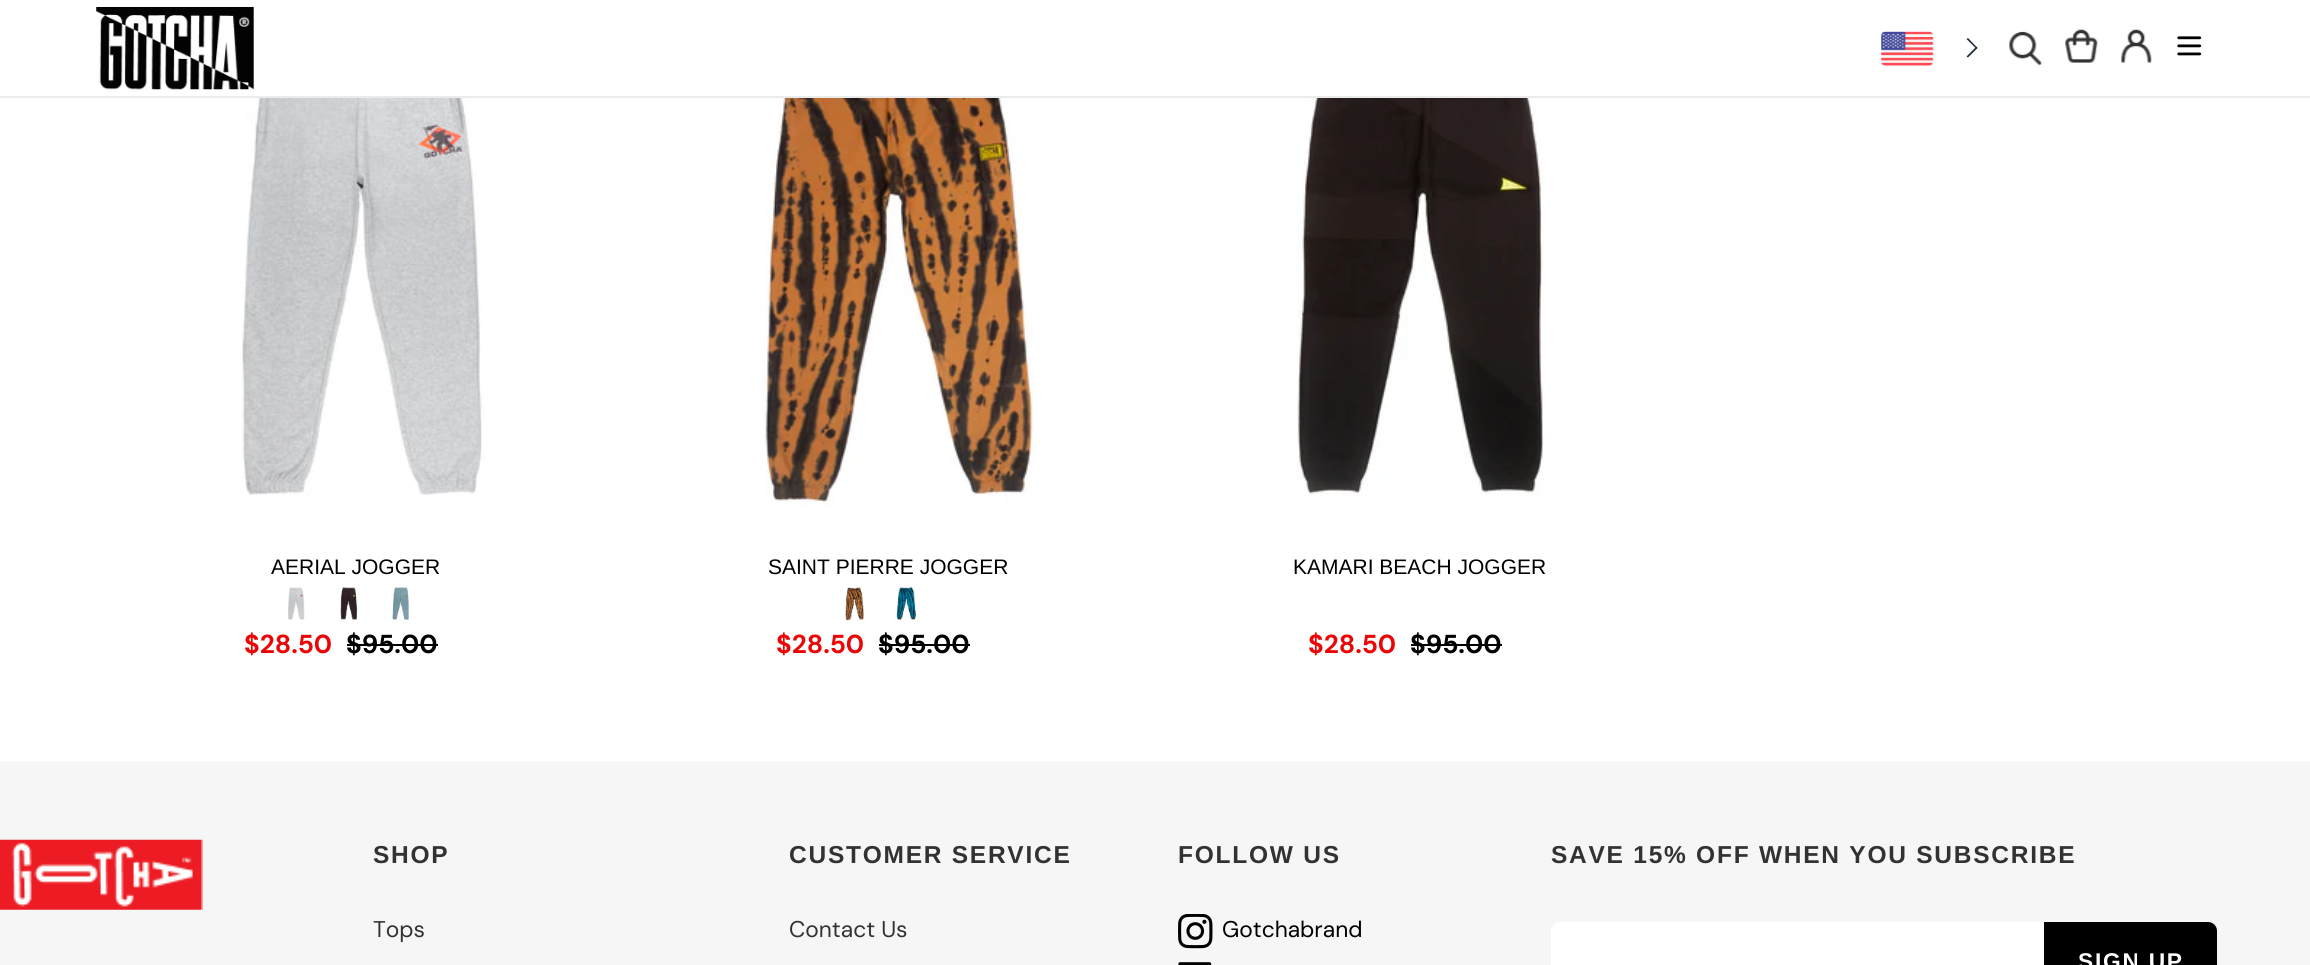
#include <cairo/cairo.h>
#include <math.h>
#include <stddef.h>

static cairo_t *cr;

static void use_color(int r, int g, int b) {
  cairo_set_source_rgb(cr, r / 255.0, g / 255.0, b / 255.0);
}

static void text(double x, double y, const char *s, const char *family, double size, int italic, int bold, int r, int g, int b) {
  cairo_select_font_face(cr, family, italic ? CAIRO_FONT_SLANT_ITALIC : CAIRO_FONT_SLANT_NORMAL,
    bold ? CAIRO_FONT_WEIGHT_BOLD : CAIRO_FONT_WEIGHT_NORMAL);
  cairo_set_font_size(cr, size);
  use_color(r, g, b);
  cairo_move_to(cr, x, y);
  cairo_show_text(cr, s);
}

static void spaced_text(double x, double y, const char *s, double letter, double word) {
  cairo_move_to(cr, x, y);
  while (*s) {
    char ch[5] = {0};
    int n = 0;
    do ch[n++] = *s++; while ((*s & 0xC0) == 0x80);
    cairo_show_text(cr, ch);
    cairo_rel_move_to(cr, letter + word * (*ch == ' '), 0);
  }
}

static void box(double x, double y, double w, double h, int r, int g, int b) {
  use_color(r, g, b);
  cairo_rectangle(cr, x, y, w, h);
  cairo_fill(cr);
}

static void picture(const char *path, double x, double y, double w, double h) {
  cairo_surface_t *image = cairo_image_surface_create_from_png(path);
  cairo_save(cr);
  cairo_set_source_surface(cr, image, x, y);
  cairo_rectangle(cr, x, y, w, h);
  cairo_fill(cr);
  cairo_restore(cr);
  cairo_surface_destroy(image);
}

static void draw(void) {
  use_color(255, 255, 255);
  cairo_paint(cr);
  box(0, 96, 2310, 2, 235, 235, 235);
  picture("img_01.png", 96, 7, 158, 83);
  picture("img_02.png", 1881, 31, 53, 35);
  use_color(33, 43, 54);
  cairo_new_path(cr);
  cairo_move_to(cr, 1966.5, 39);
  cairo_line_to(cr, 1968, 38);
  cairo_line_to(cr, 1977.5, 48);
  cairo_line_to(cr, 1976.5, 49);
  cairo_close_path(cr);
  cairo_fill(cr);
  cairo_new_path(cr);
  cairo_move_to(cr, 1966.5, 56.5);
  cairo_line_to(cr, 1976.5, 46.5);
  cairo_line_to(cr, 1977.5, 48);
  cairo_line_to(cr, 1968, 57.5);
  cairo_close_path(cr);
  cairo_fill(cr);
  picture("img_03.png", 2009, 31, 33, 34);
  picture("img_04.png", 2065, 29, 33, 34);
  picture("img_05.png", 2121, 29, 31, 34);
  picture("img_06.png", 2177, 36, 25, 20);
  picture("img_07.png", 242, 98, 242, 398);
  picture("img_08.png", 288, 587, 17, 33);
  picture("img_09.png", 340, 587, 18, 33);
  picture("img_10.png", 392, 587, 18, 33);
  box(347, 644, 91, 2, 0, 0, 0);
  picture("img_11.png", 763, 98, 271, 409);
  picture("img_12.png", 845, 587, 19, 34);
  picture("img_13.png", 896, 587, 20, 33);
  box(879, 644, 91, 2, 0, 0, 0);
  picture("img_14.png", 1297, 98, 247, 398);
  box(1411, 644, 91, 2, 0, 0, 0);
  box(0, 761, 2310, 204, 246, 246, 246);
  picture("img_15.png", 0, 839, 203, 71);
  picture("img_16.png", 1178, 914, 35, 35);
  picture("img_17.png", 1178, 962, 34, 3);
  use_color(255, 255, 255);
  cairo_new_path(cr);
  cairo_move_to(cr, 1560, 922);
  cairo_line_to(cr, 2044, 922);
  cairo_line_to(cr, 2044, 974);
  cairo_line_to(cr, 1560, 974);
  cairo_curve_to(cr, 1555, 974, 1551, 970, 1551, 965);
  cairo_line_to(cr, 1551, 931);
  cairo_curve_to(cr, 1551, 926, 1555, 922, 1560, 922);
  cairo_close_path(cr);
  cairo_fill(cr);
  use_color(0, 0, 0);
  cairo_new_path(cr);
  cairo_move_to(cr, 2044, 922);
  cairo_line_to(cr, 2208, 922);
  cairo_curve_to(cr, 2213, 922, 2217, 926, 2217, 931);
  cairo_line_to(cr, 2217, 965);
  cairo_curve_to(cr, 2217, 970, 2213, 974, 2208, 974);
  cairo_line_to(cr, 2044, 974);
  cairo_close_path(cr);
  cairo_fill(cr);
  text(271, 574, "AERIAL JOGGER", "Liberation Sans", 21, 0, 0, 0, 0, 0);
  text(244, 653, "$28.50", "DM Sans", 26, 0, 1, 234, 6, 6);
  text(346, 653, "$95.00", "DM Sans", 26, 0, 1, 0, 0, 0);
  text(768, 574, "SAINT PIERRE JOGGER", "Liberation Sans", 21, 0, 0, 0, 0, 0);
  text(776, 653, "$28.50", "DM Sans", 26, 0, 1, 234, 6, 6);
  text(878, 653, "$95.00", "DM Sans", 26, 0, 1, 0, 0, 0);
  text(1293, 574, "KAMARI BEACH JOGGER", "Liberation Sans", 21, 0, 0, 0, 0, 0);
  text(1308, 653, "$28.50", "DM Sans", 26, 0, 1, 234, 6, 6);
  text(1410, 653, "$95.00", "DM Sans", 26, 0, 1, 0, 0, 0);
  cairo_select_font_face(cr, "Liberation Sans", CAIRO_FONT_SLANT_NORMAL, CAIRO_FONT_WEIGHT_BOLD);
  cairo_set_font_size(cr, 24.5);
  use_color(51, 50, 50);
  spaced_text(373, 863, "SHOP", 1.75, 0);
  text(373, 937, "Tops", "DM Sans", 22.75, 0, 0, 51, 50, 50);
  cairo_select_font_face(cr, "Liberation Sans", CAIRO_FONT_SLANT_NORMAL, CAIRO_FONT_WEIGHT_BOLD);
  cairo_set_font_size(cr, 24.5);
  spaced_text(789, 863, "CUSTOMER SERVICE", 1.75, 0);
  text(789, 937, "Contact Us", "DM Sans", 22.75, 0, 0, 51, 50, 50);
  cairo_select_font_face(cr, "Liberation Sans", CAIRO_FONT_SLANT_NORMAL, CAIRO_FONT_WEIGHT_BOLD);
  cairo_set_font_size(cr, 24.5);
  spaced_text(1178, 863, "FOLLOW US", 1.75, 0);
  text(1222, 937, "Gotchabrand", "DM Sans", 22.75, 0, 0, 0, 0, 0);
  cairo_select_font_face(cr, "Liberation Sans", CAIRO_FONT_SLANT_NORMAL, CAIRO_FONT_WEIGHT_BOLD);
  cairo_set_font_size(cr, 24.5);
  use_color(51, 50, 50);
  spaced_text(1551, 863, "SAVE 15% OFF WHEN YOU SUBSCRIBE", 1.75, 0);
  cairo_set_font_size(cr, 22.75);
  use_color(255, 255, 255);
  spaced_text(2078, 969, "SIGN UP", 1.75, 0);
}

int main(void) {
  cairo_surface_t *surface = cairo_image_surface_create(CAIRO_FORMAT_RGB24, 2310, 965);
  cr = cairo_create(surface);
  cairo_font_options_t *options = cairo_font_options_create();
  cairo_font_options_set_hint_metrics(options, CAIRO_HINT_METRICS_OFF);
  cairo_font_options_set_hint_style(options, CAIRO_HINT_STYLE_NONE);
  cairo_set_font_options(cr, options);
  cairo_set_miter_limit(cr, 4);
  draw();
  cairo_surface_write_to_png(surface, "out.png");
  cairo_font_options_destroy(options);
  cairo_destroy(cr);
  cairo_surface_destroy(surface);
  return 0;
}
